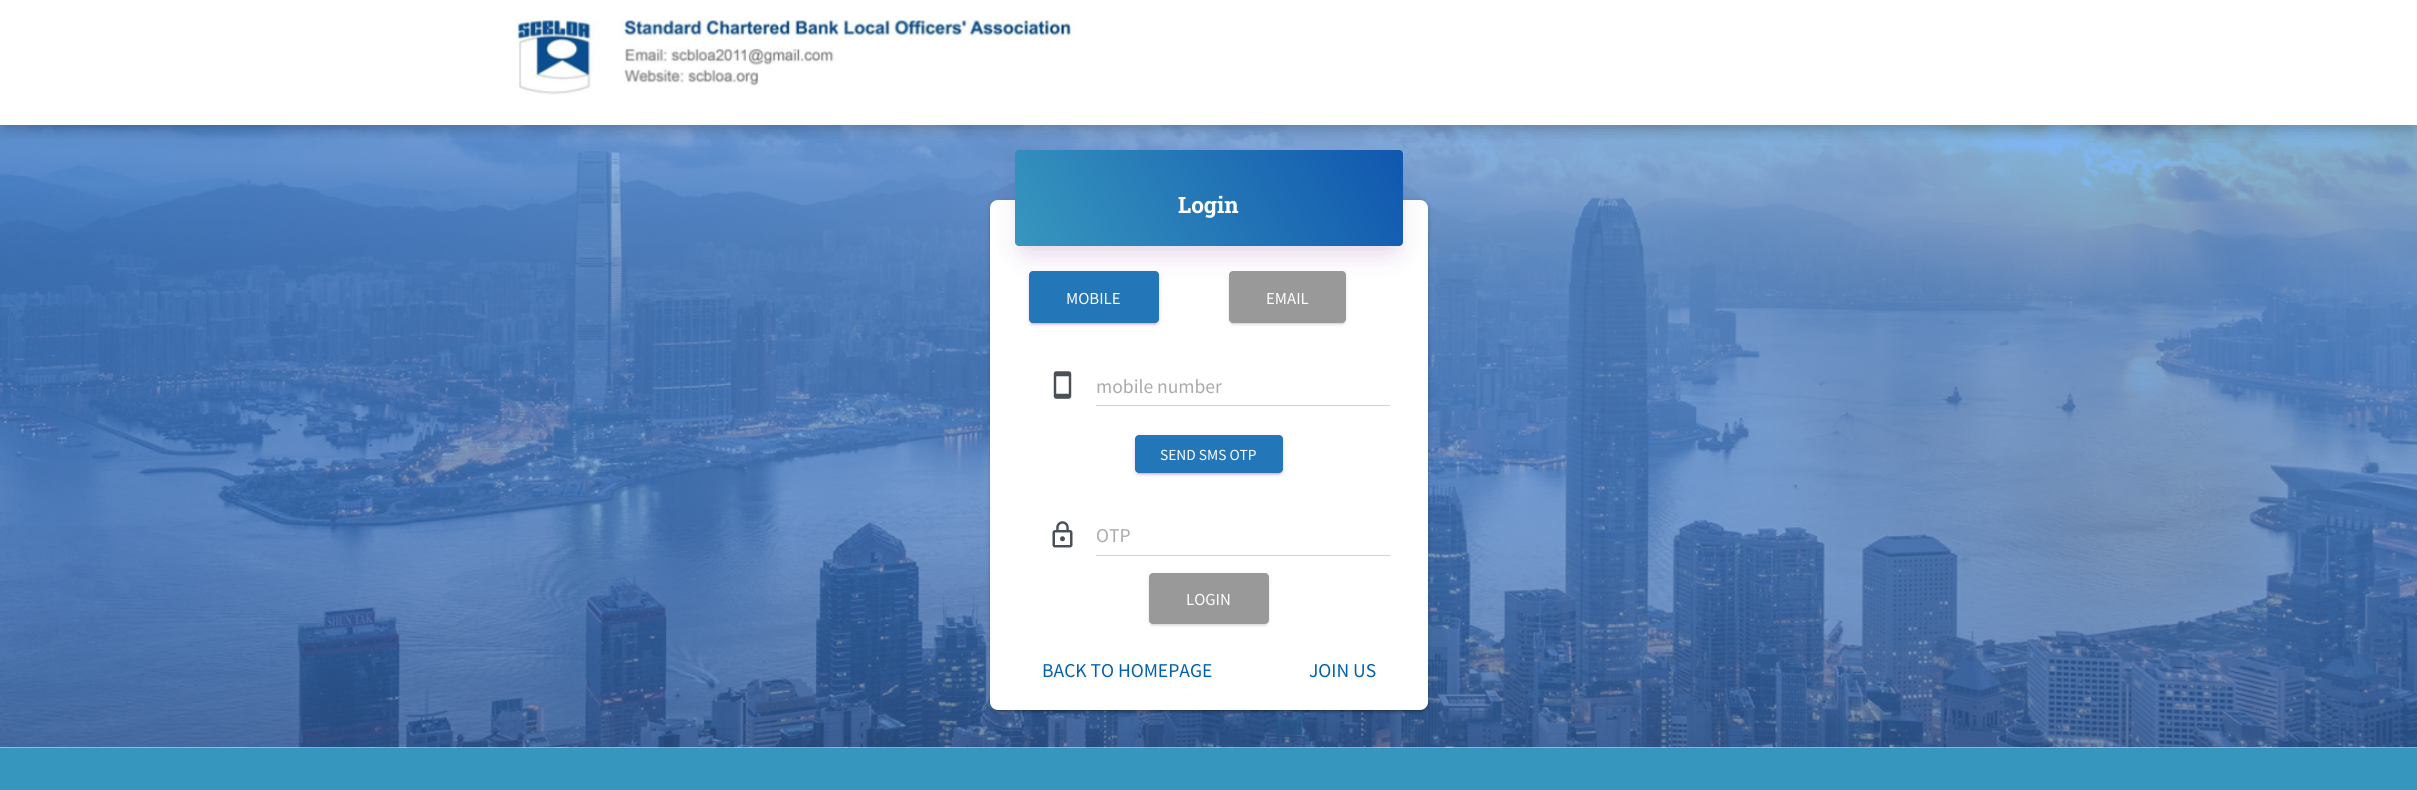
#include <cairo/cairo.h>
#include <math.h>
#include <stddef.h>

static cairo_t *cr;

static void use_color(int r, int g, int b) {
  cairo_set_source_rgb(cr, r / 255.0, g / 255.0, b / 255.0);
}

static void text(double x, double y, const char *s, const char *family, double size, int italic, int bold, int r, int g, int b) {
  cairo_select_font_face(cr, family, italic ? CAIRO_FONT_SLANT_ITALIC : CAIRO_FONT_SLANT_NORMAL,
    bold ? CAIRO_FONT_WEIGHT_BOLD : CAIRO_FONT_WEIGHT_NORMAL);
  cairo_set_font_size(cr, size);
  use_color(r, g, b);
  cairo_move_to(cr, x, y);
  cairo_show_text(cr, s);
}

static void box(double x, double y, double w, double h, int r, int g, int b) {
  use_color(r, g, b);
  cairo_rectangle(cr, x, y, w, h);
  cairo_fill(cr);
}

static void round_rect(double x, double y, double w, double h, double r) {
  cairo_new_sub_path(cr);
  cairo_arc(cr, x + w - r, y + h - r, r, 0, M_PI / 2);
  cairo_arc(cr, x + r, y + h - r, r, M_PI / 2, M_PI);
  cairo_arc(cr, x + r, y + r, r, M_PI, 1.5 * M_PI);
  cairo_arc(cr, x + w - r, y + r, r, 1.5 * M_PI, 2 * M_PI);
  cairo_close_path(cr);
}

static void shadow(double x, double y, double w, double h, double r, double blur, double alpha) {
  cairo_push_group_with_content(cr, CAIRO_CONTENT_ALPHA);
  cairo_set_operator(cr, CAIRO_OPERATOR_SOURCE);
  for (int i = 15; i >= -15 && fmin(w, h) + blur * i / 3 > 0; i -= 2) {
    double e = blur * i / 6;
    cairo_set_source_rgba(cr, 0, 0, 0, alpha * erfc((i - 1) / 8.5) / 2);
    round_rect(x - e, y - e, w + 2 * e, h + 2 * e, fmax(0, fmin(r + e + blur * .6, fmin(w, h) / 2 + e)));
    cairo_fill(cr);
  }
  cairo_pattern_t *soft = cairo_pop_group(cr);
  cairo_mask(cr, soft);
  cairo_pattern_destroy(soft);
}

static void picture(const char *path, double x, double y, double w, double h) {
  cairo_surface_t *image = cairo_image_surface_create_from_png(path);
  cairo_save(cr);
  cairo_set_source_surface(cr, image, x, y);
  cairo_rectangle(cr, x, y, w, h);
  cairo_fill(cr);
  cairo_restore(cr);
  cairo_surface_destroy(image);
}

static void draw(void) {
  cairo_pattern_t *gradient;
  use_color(255, 255, 255);
  cairo_paint(cr);
  picture("img_02.png", 0, 125, 2417, 623);
  use_color(0, 0, 0);
  shadow(6, 15, 2405, 113, 0, 6, 0.15);
  shadow(990, 201, 438, 510, 8, 3, 0.12);
  shadow(993, 206, 432, 505, 5, 0.5, 0.2);
  shadow(990, 203, 438, 510, 8, 1, 0.14);
  use_color(255, 255, 255);
  round_rect(990, 200, 438, 510, 8);
  cairo_fill(cr);
  use_color(156, 39, 176);
  shadow(1029, 180, 360, 69, 0, 15, 0.2);
  use_color(0, 0, 0);
  shadow(1015, 156, 388, 97, 4, 12.5, 0.05);
  gradient = cairo_pattern_create_linear(1043, 294, 1375, 102);
  cairo_pattern_add_color_stop_rgba(gradient, 0, 0.216, 0.588, 0.745, 1);
  cairo_pattern_add_color_stop_rgba(gradient, 1, 0.063, 0.341, 0.686, 1);
  cairo_set_source(cr, gradient);
  cairo_pattern_destroy(gradient);
  round_rect(1015, 150, 388, 96, 4);
  cairo_fill(cr);
  use_color(0, 0, 0);
  shadow(0, 5, 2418, 125, 0, 11, 0.12);
  box(0, 0, 2417, 125, 255, 255, 255);
  picture("img_01.png", 515, 19, 560, 76);
  use_color(156, 39, 176);
  shadow(1029, 273, 130, 51, 4, 3, 0.12);
  shadow(1031, 278, 125, 46, 1, 0.5, 0.2);
  shadow(1029, 274, 130, 51, 4, 1, 0.14);
  use_color(35, 118, 183);
  round_rect(1029, 271, 130, 52, 4);
  cairo_fill(cr);
  use_color(153, 153, 153);
  shadow(1229, 273, 117, 51, 4, 3, 0.12);
  shadow(1231, 278, 113, 46, 1, 0.5, 0.2);
  shadow(1229, 274, 117, 51, 4, 1, 0.14);
  use_color(153, 153, 153);
  round_rect(1229, 271, 117, 52, 4);
  cairo_fill(cr);
  picture("img_03.png", 1053, 371, 19, 28);
  box(1096, 405, 294, 1, 210, 210, 210);
  use_color(156, 39, 176);
  shadow(1135, 436, 148, 38, 4, 3, 0.12);
  shadow(1138, 441, 142, 33, 1, 0.5, 0.2);
  shadow(1135, 438, 148, 37, 4, 1, 0.14);
  use_color(35, 118, 183);
  round_rect(1135, 435, 148, 38, 4);
  cairo_fill(cr);
  picture("img_04.png", 1052, 521, 21, 27);
  box(1096, 555, 294, 1, 210, 210, 210);
  use_color(153, 153, 153);
  shadow(1149, 574, 120, 51, 4, 3, 0.12);
  shadow(1151, 579, 115, 46, 1, 0.5, 0.2);
  shadow(1149, 575, 120, 51, 4, 1, 0.14);
  use_color(153, 153, 153);
  round_rect(1149, 573, 120, 51, 4);
  cairo_fill(cr);
  box(0, 748, 2417, 42, 55, 150, 190);
  text(1178, 213, "Login", "Roboto Slab", 22.5, 0, 1, 255, 255, 255);
  text(1066, 304, "MOBILE", "Noto Sans TC", 15, 0, 0, 255, 255, 255);
  text(1266, 304, "EMAIL", "Noto Sans TC", 15, 0, 0, 255, 255, 255);
  text(1096, 393, "mobile number", "Noto Sans TC", 17.5, 0, 0, 170, 170, 170);
  text(1160, 460, "SEND SMS OTP", "Noto Sans TC", 13.75, 0, 0, 255, 255, 255);
  text(1096, 542, "OTP", "Noto Sans TC", 17.5, 0, 0, 170, 170, 170);
  text(1186, 605, "LOGIN", "Noto Sans TC", 15, 0, 0, 255, 255, 255);
  text(1042, 677, "BACK TO HOMEPAGE", "Noto Sans TC", 17.5, 0, 0, 0, 96, 173);
  text(1309, 677, "JOIN US", "Noto Sans TC", 17.5, 0, 0, 0, 96, 173);
}

int main(void) {
  cairo_surface_t *surface = cairo_image_surface_create(CAIRO_FORMAT_RGB24, 2417, 790);
  cr = cairo_create(surface);
  cairo_font_options_t *options = cairo_font_options_create();
  cairo_font_options_set_hint_metrics(options, CAIRO_HINT_METRICS_OFF);
  cairo_font_options_set_hint_style(options, CAIRO_HINT_STYLE_NONE);
  cairo_set_font_options(cr, options);
  cairo_set_miter_limit(cr, 4);
  draw();
  cairo_surface_write_to_png(surface, "out.png");
  cairo_font_options_destroy(options);
  cairo_destroy(cr);
  cairo_surface_destroy(surface);
  return 0;
}
